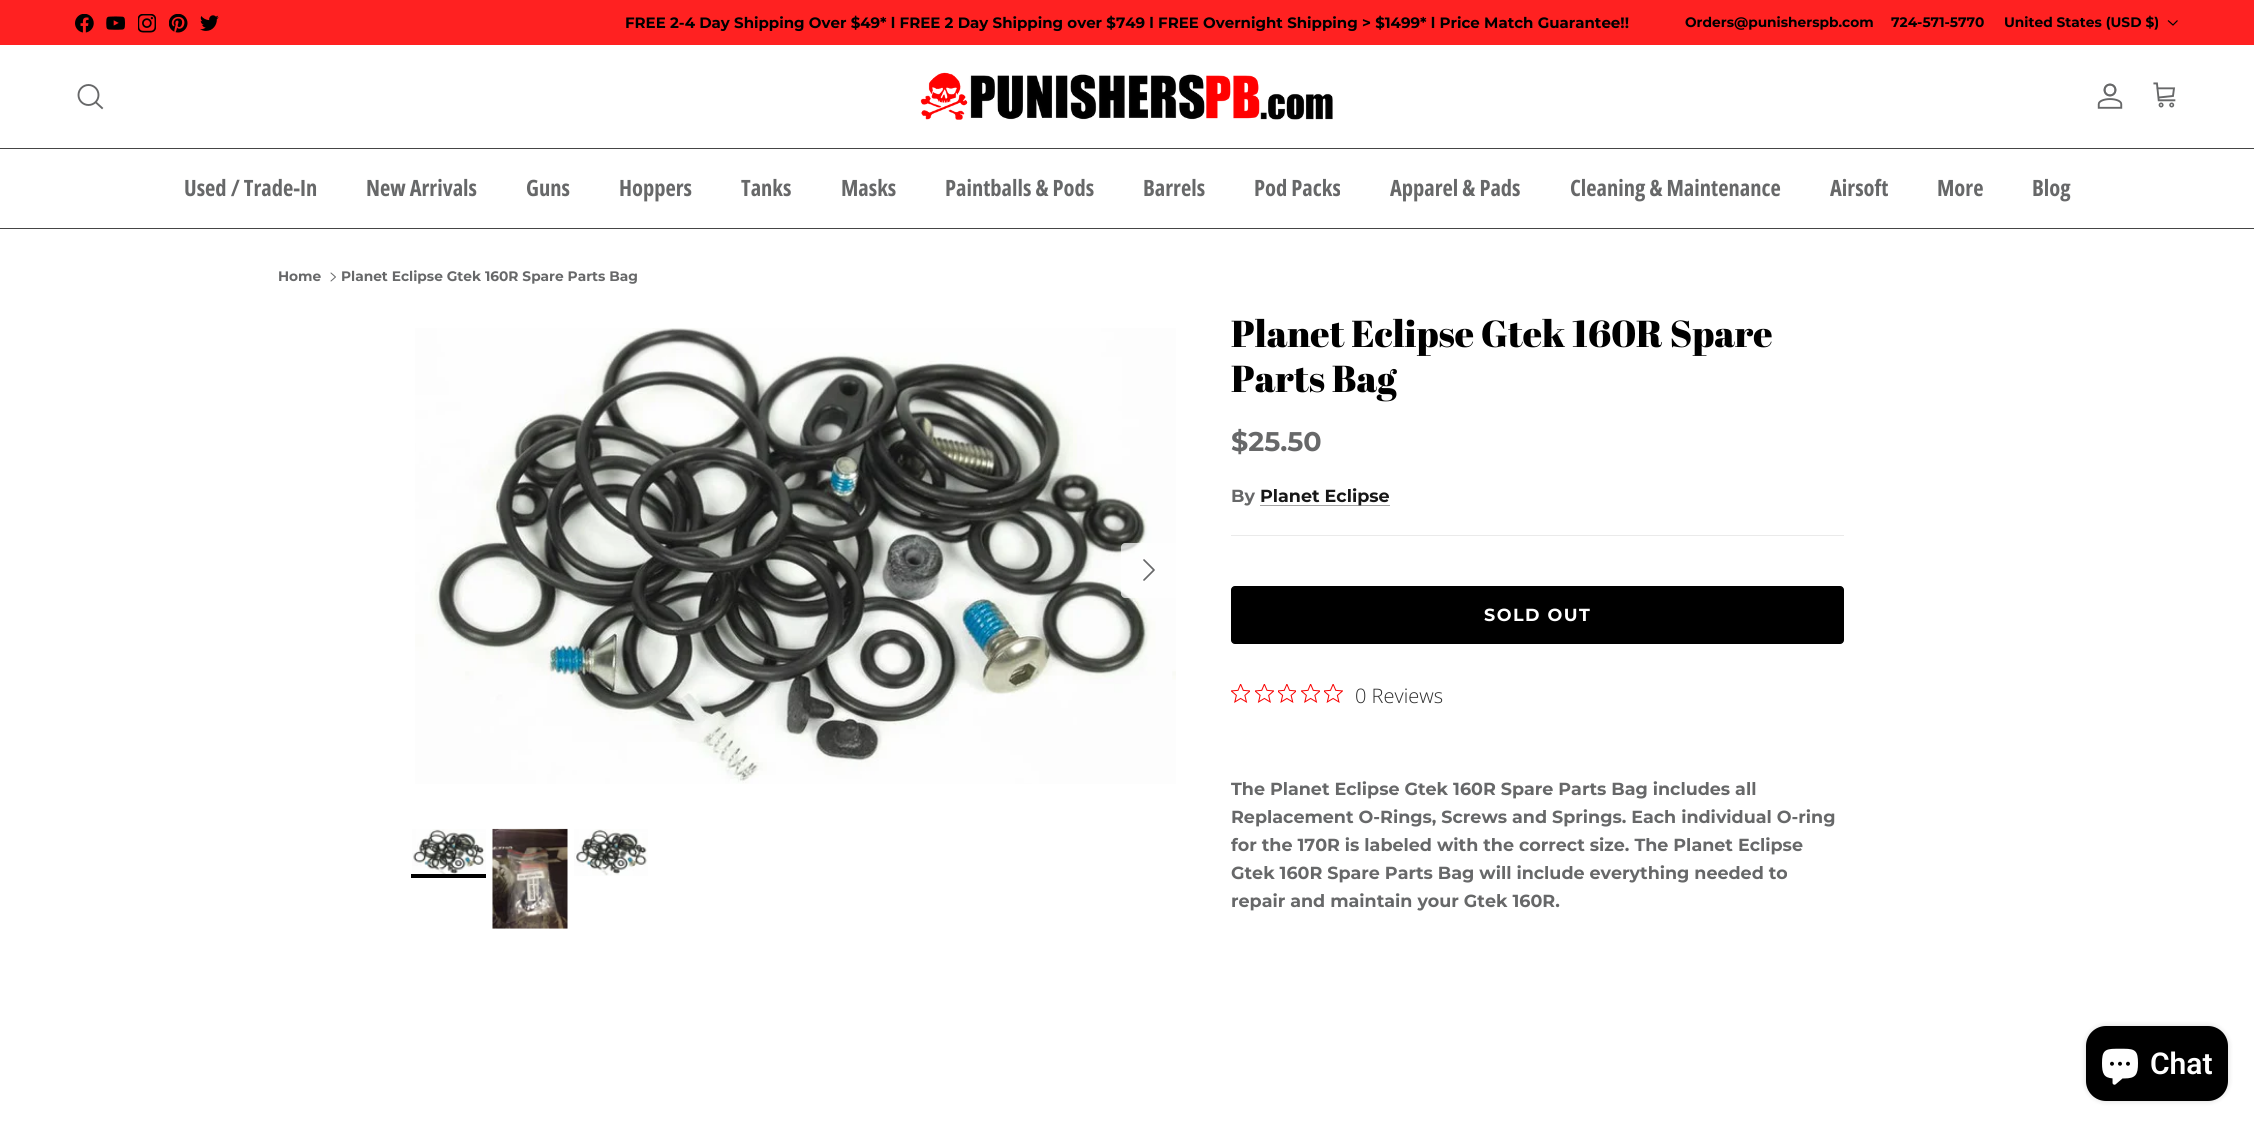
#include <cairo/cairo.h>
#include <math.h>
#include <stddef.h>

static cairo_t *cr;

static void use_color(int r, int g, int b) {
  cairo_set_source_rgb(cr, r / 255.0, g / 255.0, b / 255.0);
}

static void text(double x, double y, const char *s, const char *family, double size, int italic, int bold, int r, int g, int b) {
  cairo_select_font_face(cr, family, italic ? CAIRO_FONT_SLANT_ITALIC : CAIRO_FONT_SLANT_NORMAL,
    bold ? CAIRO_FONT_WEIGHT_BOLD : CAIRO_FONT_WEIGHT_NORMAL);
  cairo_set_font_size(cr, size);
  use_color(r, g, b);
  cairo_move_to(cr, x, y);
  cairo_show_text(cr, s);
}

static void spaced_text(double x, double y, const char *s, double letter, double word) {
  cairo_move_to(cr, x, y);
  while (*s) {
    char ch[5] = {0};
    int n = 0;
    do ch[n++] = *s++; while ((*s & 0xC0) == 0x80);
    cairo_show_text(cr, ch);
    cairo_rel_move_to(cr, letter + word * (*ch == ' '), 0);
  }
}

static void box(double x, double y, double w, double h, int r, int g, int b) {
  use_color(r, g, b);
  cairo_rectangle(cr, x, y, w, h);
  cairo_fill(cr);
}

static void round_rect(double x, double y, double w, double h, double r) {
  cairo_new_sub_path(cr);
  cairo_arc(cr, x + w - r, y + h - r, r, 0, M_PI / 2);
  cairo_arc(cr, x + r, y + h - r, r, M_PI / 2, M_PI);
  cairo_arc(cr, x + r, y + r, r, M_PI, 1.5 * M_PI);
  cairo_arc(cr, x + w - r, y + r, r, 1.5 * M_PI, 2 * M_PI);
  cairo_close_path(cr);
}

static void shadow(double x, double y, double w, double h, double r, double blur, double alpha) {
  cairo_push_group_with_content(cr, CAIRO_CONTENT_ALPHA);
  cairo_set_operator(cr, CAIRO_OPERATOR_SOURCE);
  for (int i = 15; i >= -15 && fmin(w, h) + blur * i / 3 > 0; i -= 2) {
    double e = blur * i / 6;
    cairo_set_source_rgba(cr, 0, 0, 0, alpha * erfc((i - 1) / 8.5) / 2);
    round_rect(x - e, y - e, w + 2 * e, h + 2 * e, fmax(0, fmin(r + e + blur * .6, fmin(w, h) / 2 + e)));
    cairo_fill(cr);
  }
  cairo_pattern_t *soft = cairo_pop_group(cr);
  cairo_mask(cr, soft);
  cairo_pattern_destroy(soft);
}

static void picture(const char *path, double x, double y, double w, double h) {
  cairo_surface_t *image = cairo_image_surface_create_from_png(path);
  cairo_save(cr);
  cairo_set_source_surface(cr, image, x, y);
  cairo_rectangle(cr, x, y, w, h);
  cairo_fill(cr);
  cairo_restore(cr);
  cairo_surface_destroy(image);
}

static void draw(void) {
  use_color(255, 255, 255);
  cairo_paint(cr);
  box(0, 0, 2254, 45, 255, 33, 33);
  picture("img_01.png", 75, 14, 19, 19);
  picture("img_02.png", 106, 16, 19, 14);
  picture("img_03.png", 138, 14, 18, 19);
  picture("img_04.png", 169, 14, 19, 19);
  picture("img_05.png", 200, 15, 19, 16);
  cairo_new_path(cr);
  cairo_move_to(cr, 2177.5, 20.5);
  cairo_line_to(cr, 2173, 25);
  cairo_line_to(cr, 2168, 20.5);
  use_color(0, 0, 0);
  cairo_set_line_width(cr, 1.2);
  cairo_stroke(cr);
  box(0, 148, 2254, 1, 69, 69, 69);
  cairo_arc(cr, 88.5, 95, 10, 0, 2 * M_PI);
  use_color(103, 104, 105);
  cairo_set_line_width(cr, 1.9);
  cairo_stroke(cr);
  cairo_new_path(cr);
  cairo_move_to(cr, 96, 102.5);
  cairo_line_to(cr, 102, 108);
  cairo_set_line_cap(cr, CAIRO_LINE_CAP_SQUARE);
  cairo_stroke(cr);
  picture("img_06.png", 920, 72, 413, 48);
  picture("img_07.png", 2097, 83, 26, 26);
  picture("img_08.png", 2153, 82, 23, 26);
  box(0, 228, 2254, 1, 69, 69, 69);
  cairo_new_path(cr);
  cairo_move_to(cr, 331, 281);
  cairo_line_to(cr, 335.5, 277);
  cairo_line_to(cr, 331, 273);
  use_color(103, 104, 105);
  cairo_set_line_width(cr, 1);
  cairo_set_line_cap(cr, CAIRO_LINE_CAP_ROUND);
  cairo_set_line_join(cr, CAIRO_LINE_JOIN_ROUND);
  cairo_stroke(cr);
  picture("img_09.png", 415, 328, 761, 456);
  cairo_set_source_rgba(cr, 1, 1, 1, 0.7);
  cairo_new_path(cr);
  cairo_move_to(cr, 1125, 543);
  cairo_line_to(cr, 1176, 543);
  cairo_line_to(cr, 1176, 598);
  cairo_line_to(cr, 1125, 598);
  cairo_curve_to(cr, 1123, 598, 1121, 596, 1121, 594);
  cairo_line_to(cr, 1121, 547);
  cairo_curve_to(cr, 1121, 545, 1123, 543, 1125, 543);
  cairo_close_path(cr);
  cairo_fill(cr);
  cairo_new_path(cr);
  cairo_move_to(cr, 1144, 580);
  cairo_line_to(cr, 1154, 570);
  cairo_line_to(cr, 1144, 560);
  use_color(103, 104, 105);
  cairo_set_line_width(cr, 1.7);
  cairo_stroke(cr);
  picture("img_10.png", 412, 829, 74, 45);
  box(411, 874, 75, 4, 0, 0, 0);
  picture("img_11.png", 492, 828, 76, 101);
  picture("img_12.png", 574, 829, 74, 47);
  box(1260, 505, 130, 1, 162, 162, 162);
  box(1231, 535, 613, 1, 234, 234, 234);
  use_color(0, 0, 0);
  round_rect(1231.5, 586.5, 612, 57, 3.5);
  cairo_fill_preserve(cr);
  cairo_set_line_width(cr, 1);
  cairo_set_line_cap(cr, CAIRO_LINE_CAP_BUTT);
  cairo_set_line_join(cr, CAIRO_LINE_JOIN_MITER);
  cairo_stroke(cr);
  picture("img_13.png", 1231, 684, 19, 19);
  picture("img_14.png", 1255, 684, 19, 19);
  picture("img_15.png", 1278, 684, 18, 19);
  picture("img_13.png", 1301, 684, 19, 19);
  picture("img_16.png", 1324, 684, 19, 19);
  use_color(0, 0, 0);
  shadow(2086, 1026, 142, 75, 20, 3, 0.15);
  use_color(0, 0, 0);
  round_rect(2086, 1026, 142, 75, 20);
  cairo_fill(cr);
  picture("img_17.png", 2102, 1048, 36, 37);
  text(625, 28, "FREE 2-4 Day Shipping Over $49* l FREE 2 Day Shipping over $749 l FREE Overnight Shipping > $1499* l Price Match Guarantee!!", "Montserrat", 15, 0, 1, 0, 0, 0);
  text(1685, 27, "Orders@punisherspb.com", "Montserrat", 13.75, 0, 1, 0, 0, 0);
  text(1891, 27, "724-571-5770", "Montserrat", 13.75, 0, 1, 0, 0, 0);
  text(2004, 27, "United States (USD $)", "Montserrat", 13.75, 0, 1, 0, 0, 0);
  text(184, 196, "Used / Trade-In", "Open Sans Condensed", 22.5, 0, 1, 103, 104, 105);
  text(366, 196, "New Arrivals", "Open Sans Condensed", 22.5, 0, 1, 103, 104, 105);
  text(526, 196, "Guns", "Open Sans Condensed", 22.5, 0, 1, 103, 104, 105);
  text(619, 196, "Hoppers", "Open Sans Condensed", 22.5, 0, 1, 103, 104, 105);
  text(741, 196, "Tanks", "Open Sans Condensed", 22.5, 0, 1, 103, 104, 105);
  text(841, 196, "Masks", "Open Sans Condensed", 22.5, 0, 1, 103, 104, 105);
  text(945, 196, "Paintballs & Pods", "Open Sans Condensed", 22.5, 0, 1, 103, 104, 105);
  text(1143, 196, "Barrels", "Open Sans Condensed", 22.5, 0, 1, 103, 104, 105);
  text(1254, 196, "Pod Packs", "Open Sans Condensed", 22.5, 0, 1, 103, 104, 105);
  text(1390, 196, "Apparel & Pads", "Open Sans Condensed", 22.5, 0, 1, 103, 104, 105);
  text(1570, 196, "Cleaning & Maintenance", "Open Sans Condensed", 22.5, 0, 1, 103, 104, 105);
  text(1830, 196, "Airsoft", "Open Sans Condensed", 22.5, 0, 1, 103, 104, 105);
  text(1937, 196, "More", "Open Sans Condensed", 22.5, 0, 1, 103, 104, 105);
  text(2032, 196, "Blog", "Open Sans Condensed", 22.5, 0, 1, 103, 104, 105);
  text(278, 281, "Home", "Montserrat", 13.75, 0, 1, 103, 104, 105);
  text(341, 281, "Planet Eclipse Gtek 160R Spare Parts Bag", "Montserrat", 13.75, 0, 1, 103, 104, 105);
  text(1231, 347, "Planet Eclipse Gtek 160R Spare", "Abril Fatface", 37.5, 0, 0, 0, 0, 0);
  text(1231, 392, "Parts Bag", "Abril Fatface", 37.5, 0, 0, 0, 0, 0);
  text(1231, 451, "$25.50", "Montserrat", 27, 0, 1, 103, 104, 105);
  text(1231, 502, "By", "Montserrat", 17.5, 0, 1, 103, 104, 105);
  text(1260, 502, "Planet Eclipse", "Montserrat", 17.5, 0, 1, 23, 23, 23);
  use_color(255, 255, 255);
  spaced_text(1484, 621, "SOLD OUT", 1.5, 0);
  text(1355, 703, "0 Reviews", "Open Sans Light", 20, 0, 0, 44, 44, 44);
  text(1231, 795, "The Planet Eclipse Gtek 160R Spare Parts Bag includes all", "Montserrat", 17.5, 0, 1, 103, 104, 105);
  text(1231, 823, "Replacement O-Rings, Screws and Springs. Each individual O-ring", "Montserrat", 17.5, 0, 1, 103, 104, 105);
  text(1231, 851, "for the 170R is labeled with the correct size. The Planet Eclipse", "Montserrat", 17.5, 0, 1, 103, 104, 105);
  text(1231, 879, "Gtek 160R Spare Parts Bag will include everything needed to", "Montserrat", 17.5, 0, 1, 103, 104, 105);
  text(1231, 907, "repair and maintain your Gtek 160R.", "Montserrat", 17.5, 0, 1, 103, 104, 105);
  text(2150, 1074, "Chat", "Roboto SemiBold", 30, 0, 0, 255, 255, 255);
}

int main(void) {
  cairo_surface_t *surface = cairo_image_surface_create(CAIRO_FORMAT_RGB24, 2254, 1127);
  cr = cairo_create(surface);
  cairo_font_options_t *options = cairo_font_options_create();
  cairo_font_options_set_hint_metrics(options, CAIRO_HINT_METRICS_OFF);
  cairo_font_options_set_hint_style(options, CAIRO_HINT_STYLE_NONE);
  cairo_set_font_options(cr, options);
  cairo_set_miter_limit(cr, 4);
  draw();
  cairo_surface_write_to_png(surface, "out.png");
  cairo_font_options_destroy(options);
  cairo_destroy(cr);
  cairo_surface_destroy(surface);
  return 0;
}
